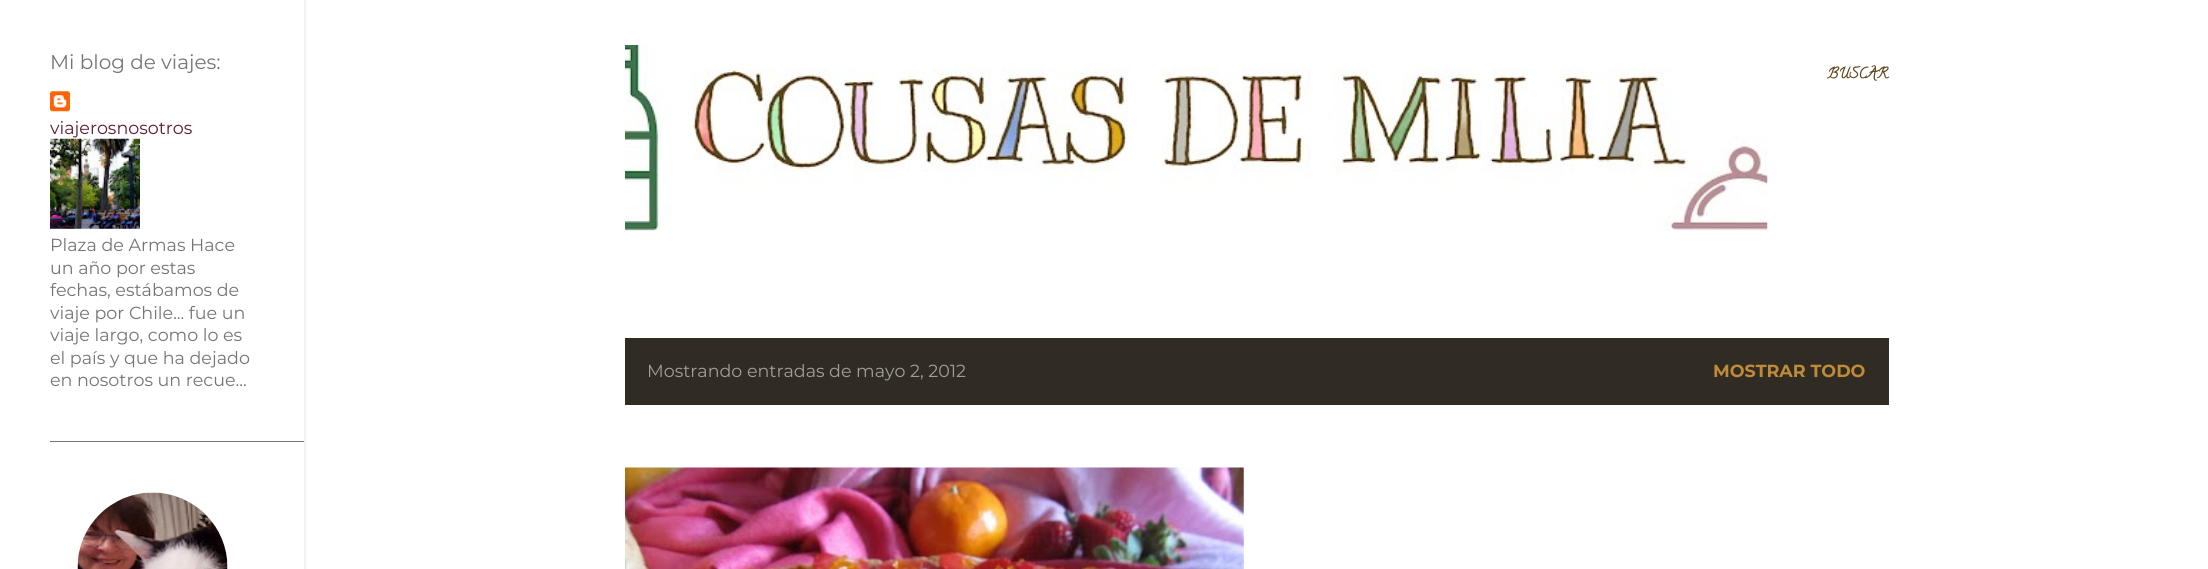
#include <cairo/cairo.h>
#include <math.h>
#include <stddef.h>

static cairo_t *cr;

static void use_color(int r, int g, int b) {
  cairo_set_source_rgb(cr, r / 255.0, g / 255.0, b / 255.0);
}

static void text(double x, double y, const char *s, const char *family, double size, int italic, int bold, int r, int g, int b) {
  cairo_select_font_face(cr, family, italic ? CAIRO_FONT_SLANT_ITALIC : CAIRO_FONT_SLANT_NORMAL,
    bold ? CAIRO_FONT_WEIGHT_BOLD : CAIRO_FONT_WEIGHT_NORMAL);
  cairo_set_font_size(cr, size);
  use_color(r, g, b);
  cairo_move_to(cr, x, y);
  cairo_show_text(cr, s);
}

static void box(double x, double y, double w, double h, int r, int g, int b) {
  use_color(r, g, b);
  cairo_rectangle(cr, x, y, w, h);
  cairo_fill(cr);
}

static void round_rect(double x, double y, double w, double h, double r) {
  cairo_new_sub_path(cr);
  cairo_arc(cr, x + w - r, y + h - r, r, 0, M_PI / 2);
  cairo_arc(cr, x + r, y + h - r, r, M_PI / 2, M_PI);
  cairo_arc(cr, x + r, y + r, r, M_PI, 1.5 * M_PI);
  cairo_arc(cr, x + w - r, y + r, r, 1.5 * M_PI, 2 * M_PI);
  cairo_close_path(cr);
}

static void shadow(double x, double y, double w, double h, double r, double blur, double alpha) {
  cairo_push_group_with_content(cr, CAIRO_CONTENT_ALPHA);
  cairo_set_operator(cr, CAIRO_OPERATOR_SOURCE);
  for (int i = 15; i >= -15 && fmin(w, h) + blur * i / 3 > 0; i -= 2) {
    double e = blur * i / 6;
    cairo_set_source_rgba(cr, 0, 0, 0, alpha * erfc((i - 1) / 8.5) / 2);
    round_rect(x - e, y - e, w + 2 * e, h + 2 * e, fmax(0, fmin(r + e + blur * .6, fmin(w, h) / 2 + e)));
    cairo_fill(cr);
  }
  cairo_pattern_t *soft = cairo_pop_group(cr);
  cairo_mask(cr, soft);
  cairo_pattern_destroy(soft);
}

static void picture(const char *path, double x, double y, double w, double h) {
  cairo_surface_t *image = cairo_image_surface_create_from_png(path);
  cairo_save(cr);
  cairo_set_source_surface(cr, image, x, y);
  cairo_rectangle(cr, x, y, w, h);
  cairo_fill(cr);
  cairo_restore(cr);
  cairo_surface_destroy(image);
}

static void draw(void) {
  use_color(255, 255, 255);
  cairo_paint(cr);
  use_color(0, 0, 0);
  shadow(1, 0, 304, 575, 0, 2, 0.1);
  box(0, 0, 304, 569, 255, 255, 255);
  picture("img_01.png", 50, 91, 20, 21);
  picture("img_02.png", 50, 138, 90, 91);
  box(50, 441, 254, 1, 117, 117, 117);
  picture("img_03.png", 77, 492, 151, 77);
  picture("img_04.png", 625, 45, 1143, 186);
  box(625, 338, 1264, 67, 48, 44, 36);
  picture("img_05.png", 625, 467, 619, 102);
  text(50, 69, "Mi blog de viajes:", "Montserrat", 20, 0, 0, 117, 117, 117);
  text(50, 134, "viajerosnosotros", "Montserrat", 17.5, 0, 0, 95, 27, 52);
  text(50, 251, "Plaza de Armas Hace", "Montserrat", 17.5, 0, 0, 117, 117, 117);
  text(50, 274, "un año por estas", "Montserrat", 17.5, 0, 0, 117, 117, 117);
  text(50, 296, "fechas, estábamos de", "Montserrat", 17.5, 0, 0, 117, 117, 117);
  text(50, 319, "viaje por Chile... fue un", "Montserrat", 17.5, 0, 0, 117, 117, 117);
  text(50, 341, "viaje largo, como lo es", "Montserrat", 17.5, 0, 0, 117, 117, 117);
  text(50, 364, "el país y que ha dejado", "Montserrat", 17.5, 0, 0, 117, 117, 117);
  text(50, 386, "en nosotros un recue...", "Montserrat", 17.5, 0, 0, 117, 117, 117);
  text(1827, 78, "BUSCAR", "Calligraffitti", 15, 0, 1, 95, 69, 27);
  text(647, 377, "Mostrando entradas de mayo 2, 2012", "Montserrat", 17.5, 0, 0, 160, 158, 154);
  text(1713, 377, "MOSTRAR TODO", "Montserrat", 17.5, 0, 1, 191, 139, 56);
}

int main(void) {
  cairo_surface_t *surface = cairo_image_surface_create(CAIRO_FORMAT_RGB24, 2208, 569);
  cr = cairo_create(surface);
  cairo_font_options_t *options = cairo_font_options_create();
  cairo_font_options_set_hint_metrics(options, CAIRO_HINT_METRICS_OFF);
  cairo_font_options_set_hint_style(options, CAIRO_HINT_STYLE_NONE);
  cairo_set_font_options(cr, options);
  cairo_set_miter_limit(cr, 4);
  draw();
  cairo_surface_write_to_png(surface, "out.png");
  cairo_font_options_destroy(options);
  cairo_destroy(cr);
  cairo_surface_destroy(surface);
  return 0;
}
